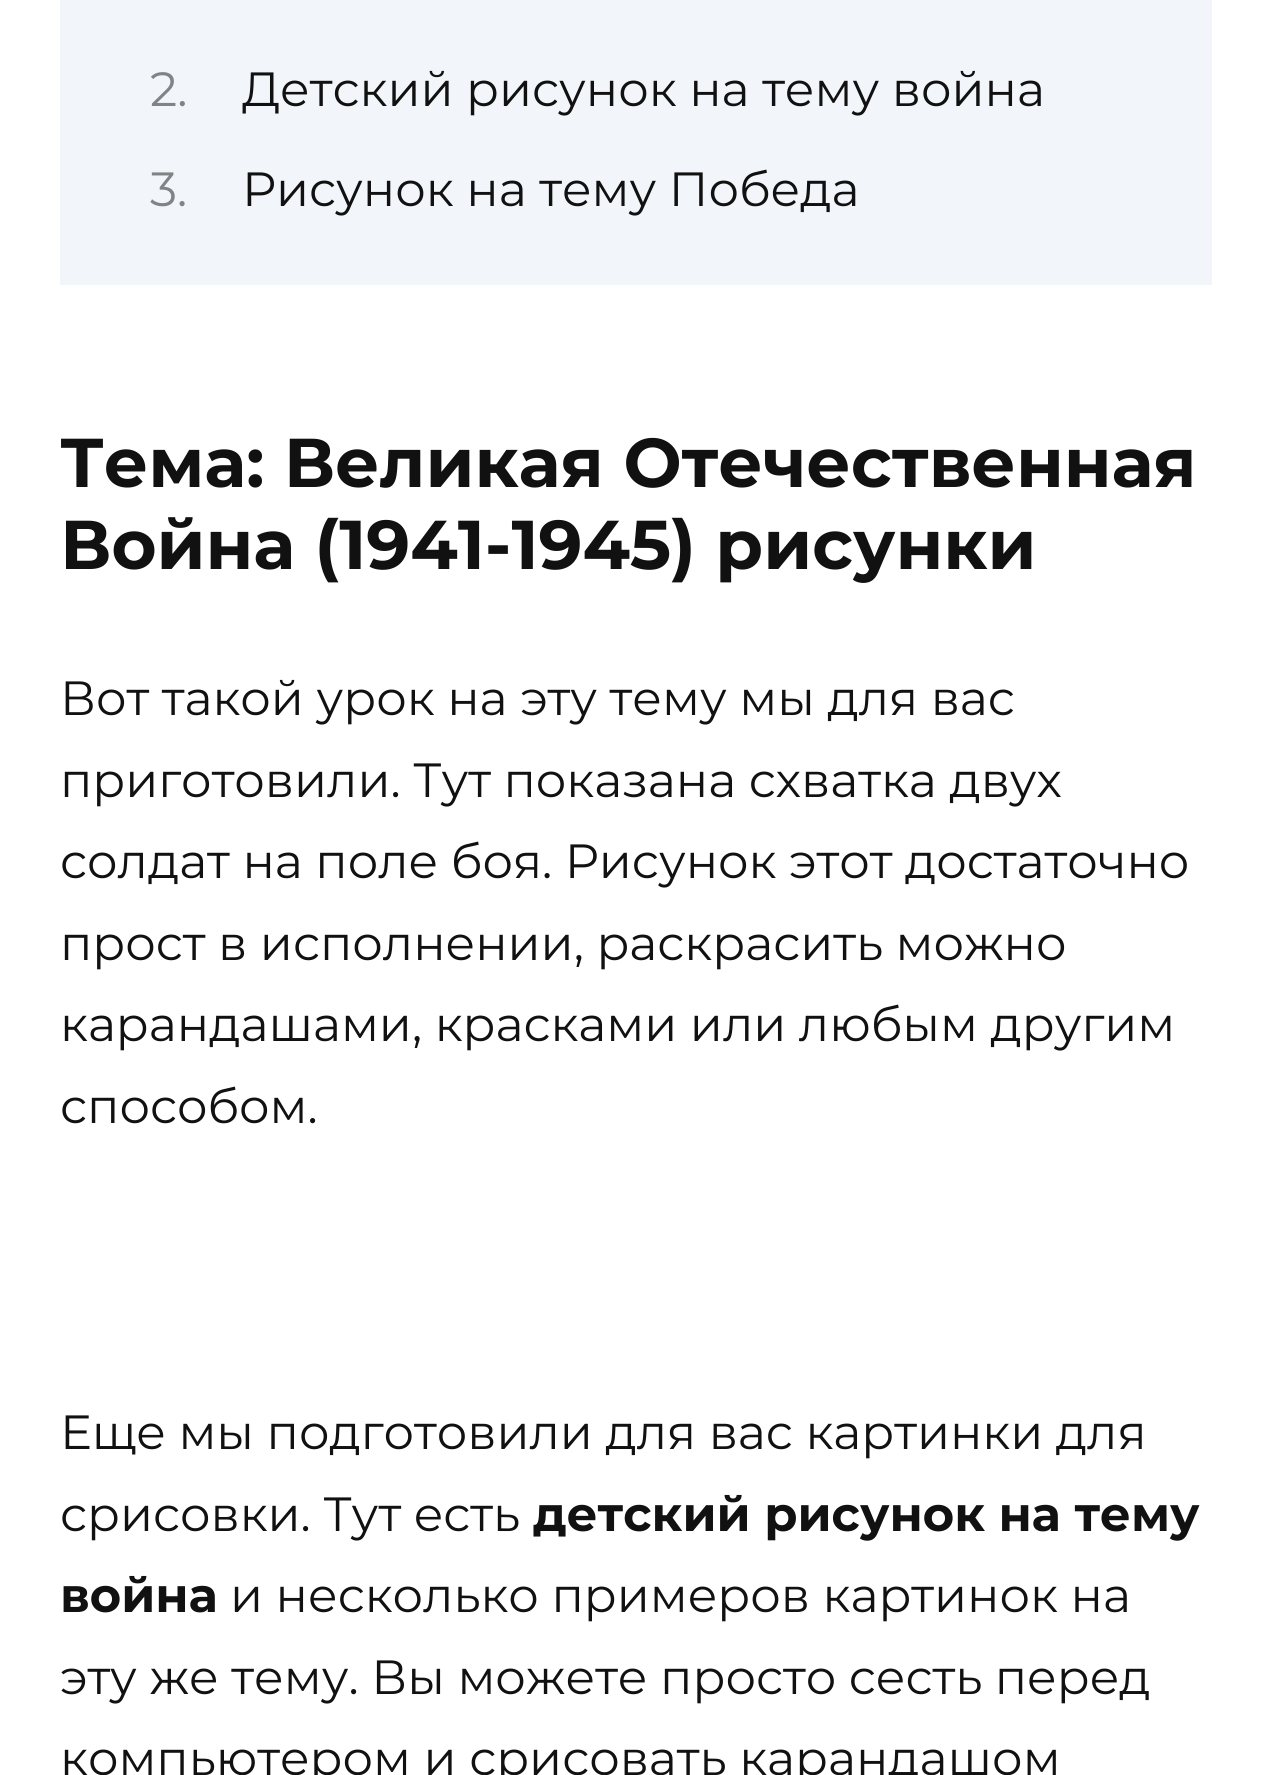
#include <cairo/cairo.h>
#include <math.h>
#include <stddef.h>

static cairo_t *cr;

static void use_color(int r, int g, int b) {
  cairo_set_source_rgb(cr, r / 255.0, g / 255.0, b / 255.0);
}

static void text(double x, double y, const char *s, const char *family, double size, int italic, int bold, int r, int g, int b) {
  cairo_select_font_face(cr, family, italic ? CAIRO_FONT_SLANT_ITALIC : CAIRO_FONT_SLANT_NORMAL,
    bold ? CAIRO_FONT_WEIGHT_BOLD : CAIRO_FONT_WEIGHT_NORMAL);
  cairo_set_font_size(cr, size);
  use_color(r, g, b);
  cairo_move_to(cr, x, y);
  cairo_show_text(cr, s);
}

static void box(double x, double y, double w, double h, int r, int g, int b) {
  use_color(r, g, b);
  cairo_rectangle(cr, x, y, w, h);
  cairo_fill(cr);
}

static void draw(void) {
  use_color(255, 255, 255);
  cairo_paint(cr);
  box(60, 0, 1152, 285, 242, 245, 249);
  text(150, 106, "2.", "Montserrat", 48, 0, 0, 130, 131, 133);
  text(242, 106, "Детский рисунок на тему война", "Montserrat", 48, 0, 0, 17, 17, 17);
  text(150, 206, "3.", "Montserrat", 48, 0, 0, 130, 131, 133);
  text(242, 206, "Рисунок на тему Победа", "Montserrat", 48, 0, 0, 17, 17, 17);
  text(60, 487, "Тема: Великая Отечественная", "Montserrat", 69, 0, 1, 17, 17, 17);
  text(60, 569, "Война (1941-1945) рисунки", "Montserrat", 69, 0, 1, 17, 17, 17);
  text(60, 715, "Вот такой урок на эту тему мы для вас", "Montserrat", 48, 0, 0, 17, 17, 17);
  text(60, 797, "приготовили. Тут показана схватка двух", "Montserrat", 48, 0, 0, 17, 17, 17);
  text(60, 878, "солдат на поле боя. Рисунок этот достаточно", "Montserrat", 48, 0, 0, 17, 17, 17);
  text(60, 960, "прост в исполнении, раскрасить можно", "Montserrat", 48, 0, 0, 17, 17, 17);
  text(60, 1041, "карандашами, красками или любым другим", "Montserrat", 48, 0, 0, 17, 17, 17);
  text(60, 1123, "способом.", "Montserrat", 48, 0, 0, 17, 17, 17);
  text(60, 1449, "Еще мы подготовили для вас картинки для", "Montserrat", 48, 0, 0, 17, 17, 17);
  text(60, 1531, "срисовки. Тут есть", "Montserrat", 48, 0, 0, 17, 17, 17);
  text(533, 1531, "детский рисунок на тему", "Montserrat", 48, 0, 1, 17, 17, 17);
  text(60, 1612, "война", "Montserrat", 48, 0, 1, 17, 17, 17);
  text(230, 1612, "и несколько примеров картинок на", "Montserrat", 48, 0, 0, 17, 17, 17);
  text(60, 1694, "эту же тему. Вы можете просто сесть перед", "Montserrat", 48, 0, 0, 17, 17, 17);
  text(60, 1775, "компьютером и срисовать карандашом", "Montserrat", 48, 0, 0, 17, 17, 17);
}

int main(void) {
  cairo_surface_t *surface = cairo_image_surface_create(CAIRO_FORMAT_RGB24, 1270, 1775);
  cr = cairo_create(surface);
  cairo_font_options_t *options = cairo_font_options_create();
  cairo_font_options_set_hint_metrics(options, CAIRO_HINT_METRICS_OFF);
  cairo_font_options_set_hint_style(options, CAIRO_HINT_STYLE_NONE);
  cairo_set_font_options(cr, options);
  cairo_set_miter_limit(cr, 4);
  draw();
  cairo_surface_write_to_png(surface, "out.png");
  cairo_font_options_destroy(options);
  cairo_destroy(cr);
  cairo_surface_destroy(surface);
  return 0;
}
